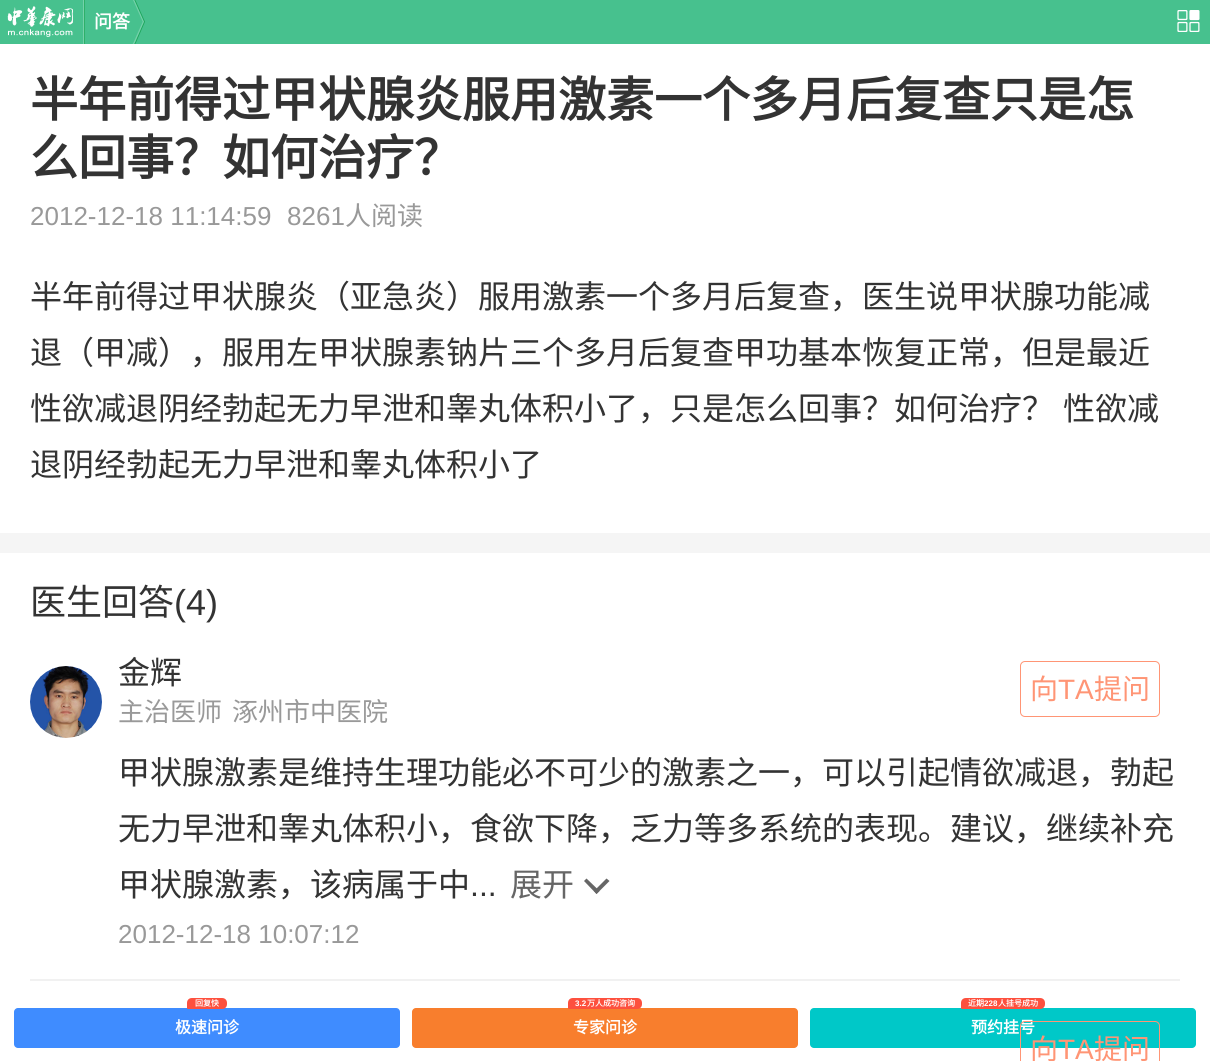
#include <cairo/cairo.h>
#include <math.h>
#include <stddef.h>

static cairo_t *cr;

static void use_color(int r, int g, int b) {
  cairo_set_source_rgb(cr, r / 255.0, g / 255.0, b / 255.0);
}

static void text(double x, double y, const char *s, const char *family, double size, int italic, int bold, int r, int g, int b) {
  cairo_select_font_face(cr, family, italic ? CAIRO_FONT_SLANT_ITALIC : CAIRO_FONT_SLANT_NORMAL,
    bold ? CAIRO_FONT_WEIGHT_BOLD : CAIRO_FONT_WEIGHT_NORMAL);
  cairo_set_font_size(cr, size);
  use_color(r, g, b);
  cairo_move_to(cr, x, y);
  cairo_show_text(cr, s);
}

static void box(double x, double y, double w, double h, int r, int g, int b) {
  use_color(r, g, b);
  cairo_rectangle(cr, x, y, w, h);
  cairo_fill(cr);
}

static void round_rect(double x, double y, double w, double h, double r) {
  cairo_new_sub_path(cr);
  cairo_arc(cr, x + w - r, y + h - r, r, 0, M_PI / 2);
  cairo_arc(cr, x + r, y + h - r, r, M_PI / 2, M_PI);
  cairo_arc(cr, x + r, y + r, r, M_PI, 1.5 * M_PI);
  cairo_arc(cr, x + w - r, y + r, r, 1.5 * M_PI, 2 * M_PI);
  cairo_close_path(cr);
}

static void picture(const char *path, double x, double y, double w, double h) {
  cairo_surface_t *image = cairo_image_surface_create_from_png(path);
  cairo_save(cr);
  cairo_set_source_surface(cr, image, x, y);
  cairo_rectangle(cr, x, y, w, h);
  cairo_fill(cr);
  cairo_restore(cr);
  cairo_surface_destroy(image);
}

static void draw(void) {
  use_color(255, 255, 255);
  cairo_paint(cr);
  box(0, 0, 1210, 44, 71, 193, 142);
  picture("img_01.png", 7, 6, 66, 31);
  box(84, 0, 1, 44, 45, 176, 105);
  box(83, 0, 1, 44, 117, 209, 170);
  picture("img_02.png", 132, 0, 13, 44);
  picture("img_03.png", 1177, 10, 23, 22);
  box(0, 533, 1210, 20, 245, 245, 245);
  picture("img_04.png", 30, 666, 72, 72);
  round_rect(1020.5, 661.5, 139, 55, 4.5);
  use_color(255, 149, 117);
  cairo_set_line_width(cr, 1);
  cairo_stroke(cr);
  use_color(102, 102, 102);
  cairo_new_path(cr);
  cairo_move_to(cr, 606.5, 878.5);
  cairo_line_to(cr, 609.5, 881);
  cairo_line_to(cr, 596.5, 894);
  cairo_line_to(cr, 594, 891);
  cairo_close_path(cr);
  cairo_fill(cr);
  cairo_new_path(cr);
  cairo_move_to(cr, 586.5, 878.5);
  cairo_line_to(cr, 599.5, 891);
  cairo_line_to(cr, 596.5, 894);
  cairo_line_to(cr, 584, 881);
  cairo_close_path(cr);
  cairo_fill(cr);
  box(30, 979, 1150, 2, 241, 241, 241);
  use_color(63, 140, 255);
  round_rect(14, 1008, 386, 40, 4);
  cairo_fill(cr);
  use_color(253, 80, 62);
  cairo_new_path(cr);
  cairo_move_to(cr, 192, 998);
  cairo_line_to(cr, 222, 998);
  cairo_curve_to(cr, 225, 998, 227, 1000, 227, 1003);
  cairo_line_to(cr, 227, 1004);
  cairo_curve_to(cr, 227, 1007, 225, 1009, 222, 1009);
  cairo_line_to(cr, 188, 1009);
  cairo_curve_to(cr, 187.5, 1009, 187, 1008.5, 187, 1008);
  cairo_line_to(cr, 187, 1003);
  cairo_curve_to(cr, 187, 1000, 189, 998, 192, 998);
  cairo_close_path(cr);
  cairo_fill(cr);
  use_color(248, 126, 45);
  round_rect(412, 1008, 386, 40, 4);
  cairo_fill(cr);
  use_color(253, 80, 62);
  cairo_new_path(cr);
  cairo_move_to(cr, 573, 998);
  cairo_line_to(cr, 637, 998);
  cairo_curve_to(cr, 640, 998, 642, 1000, 642, 1003);
  cairo_line_to(cr, 642, 1004);
  cairo_curve_to(cr, 642, 1007, 640, 1009, 637, 1009);
  cairo_line_to(cr, 569, 1009);
  cairo_curve_to(cr, 568.5, 1009, 568, 1008.5, 568, 1008);
  cairo_line_to(cr, 568, 1003);
  cairo_curve_to(cr, 568, 1000, 570, 998, 573, 998);
  cairo_close_path(cr);
  cairo_fill(cr);
  use_color(0, 200, 200);
  round_rect(810, 1008, 386, 40, 4);
  cairo_fill(cr);
  use_color(253, 80, 62);
  cairo_new_path(cr);
  cairo_move_to(cr, 966, 998);
  cairo_line_to(cr, 1040, 998);
  cairo_curve_to(cr, 1043, 998, 1045, 1000, 1045, 1003);
  cairo_line_to(cr, 1045, 1004);
  cairo_curve_to(cr, 1045, 1007, 1043, 1009, 1040, 1009);
  cairo_line_to(cr, 962, 1009);
  cairo_curve_to(cr, 961.5, 1009, 961, 1008.5, 961, 1008);
  cairo_line_to(cr, 961, 1003);
  cairo_curve_to(cr, 961, 1000, 963, 998, 966, 998);
  cairo_close_path(cr);
  cairo_fill(cr);
  text(94, 28, "问答", "Noto Sans CJK SC", 18, 0, 1, 255, 255, 255);
  text(30, 117, "半年前得过甲状腺炎服用激素一个多月后复查只是怎", "Noto Sans CJK SC", 48, 0, 1, 51, 51, 51);
  text(30, 175, "么回事？如何治疗？", "Noto Sans CJK SC", 48, 0, 1, 51, 51, 51);
  text(30, 225, "2012-12-18 11:14:59", "Liberation Sans", 26, 0, 0, 153, 153, 153);
  text(287, 225, "8261", "Liberation Sans", 26, 0, 0, 153, 153, 153);
  text(345, 225, "人阅读", "Noto Sans CJK SC", 26, 0, 0, 153, 153, 153);
  text(30, 308, "半年前得过甲状腺炎（亚急炎）服用激素一个多月后复查，医生说甲状腺功能减", "Noto Sans CJK SC", 32, 0, 0, 51, 51, 51);
  text(30, 364, "退（甲减），服用左甲状腺素钠片三个多月后复查甲功基本恢复正常，但是最近", "Noto Sans CJK SC", 32, 0, 0, 51, 51, 51);
  text(30, 420, "性欲减退阴经勃起无力早泄和睾丸体积小了，只是怎么回事？如何治疗？", "Noto Sans CJK SC", 32, 0, 0, 51, 51, 51);
  text(1063, 420, "性欲减", "Noto Sans CJK SC", 32, 0, 0, 51, 51, 51);
  text(30, 476, "退阴经勃起无力早泄和睾丸体积小了", "Noto Sans CJK SC", 32, 0, 0, 51, 51, 51);
  text(30, 615, "医生回答", "Noto Sans CJK SC", 36, 0, 0, 51, 51, 51);
  text(174, 615, "(4)", "Liberation Sans", 36, 0, 0, 51, 51, 51);
  text(118, 684, "金辉", "Noto Sans CJK SC", 32, 0, 0, 51, 51, 51);
  text(118, 721, "主治医师", "Noto Sans CJK SC", 26, 0, 0, 153, 153, 153);
  text(232, 721, "涿州市中医院", "Noto Sans CJK SC", 26, 0, 0, 153, 153, 153);
  text(1030, 699, "向", "Noto Sans CJK SC", 28, 0, 0, 255, 149, 117);
  text(1058, 699, "TA", "Liberation Sans", 28, 0, 0, 255, 149, 117);
  text(1094, 699, "提问", "Noto Sans CJK SC", 28, 0, 0, 255, 149, 117);
  text(118, 784, "甲状腺激素是维持生理功能必不可少的激素之一，可以引起情欲减退，勃起", "Noto Sans CJK SC", 32, 0, 0, 51, 51, 51);
  text(118, 840, "无力早泄和睾丸体积小，食欲下降，乏力等多系统的表现。建议，继续补充", "Noto Sans CJK SC", 32, 0, 0, 51, 51, 51);
  text(118, 896, "甲状腺激素，该病属于中", "Noto Sans CJK SC", 32, 0, 0, 51, 51, 51);
  text(470, 896, "...", "Liberation Sans", 32, 0, 0, 51, 51, 51);
  text(510, 896, "展开", "Noto Sans CJK SC", 32, 0, 0, 102, 102, 102);
  text(118, 943, "2012-12-18 10:07:12", "Liberation Sans", 26, 0, 0, 153, 153, 153);
  text(195, 1006, "回复快", "Noto Sans CJK SC", 8, 0, 1, 255, 255, 255);
  text(175, 1033, "极速问诊", "Noto Sans CJK SC", 16, 0, 1, 255, 255, 255);
  text(575, 1006, "3.2", "Liberation Sans", 8, 0, 1, 255, 255, 255);
  text(587, 1006, "万人成功咨询", "Noto Sans CJK SC", 8, 0, 1, 255, 255, 255);
  text(573, 1033, "专家问诊", "Noto Sans CJK SC", 16, 0, 1, 255, 255, 255);
  text(968, 1006, "近期", "Noto Sans CJK SC", 8, 0, 1, 255, 255, 255);
  text(984, 1006, "228", "Liberation Sans", 8, 0, 1, 255, 255, 255);
  text(998, 1006, "人挂号成功", "Noto Sans CJK SC", 8, 0, 1, 255, 255, 255);
  text(971, 1033, "预约挂号", "Noto Sans CJK SC", 16, 0, 1, 255, 255, 255);
  round_rect(1020.5, 1021.5, 139, 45, 4.5);
  use_color(255, 149, 117);
  cairo_stroke(cr);
  text(1094, 1059, "提问", "Noto Sans CJK SC", 28, 0, 0, 255, 149, 117);
  text(1058, 1059, "TA", "Liberation Sans", 28, 0, 0, 255, 149, 117);
  text(1030, 1059, "向", "Noto Sans CJK SC", 28, 0, 0, 255, 149, 117);
}

int main(void) {
  cairo_surface_t *surface = cairo_image_surface_create(CAIRO_FORMAT_RGB24, 1210, 1061);
  cr = cairo_create(surface);
  cairo_font_options_t *options = cairo_font_options_create();
  cairo_font_options_set_hint_metrics(options, CAIRO_HINT_METRICS_OFF);
  cairo_font_options_set_hint_style(options, CAIRO_HINT_STYLE_NONE);
  cairo_set_font_options(cr, options);
  cairo_set_miter_limit(cr, 4);
  draw();
  cairo_surface_write_to_png(surface, "out.png");
  cairo_font_options_destroy(options);
  cairo_destroy(cr);
  cairo_surface_destroy(surface);
  return 0;
}
